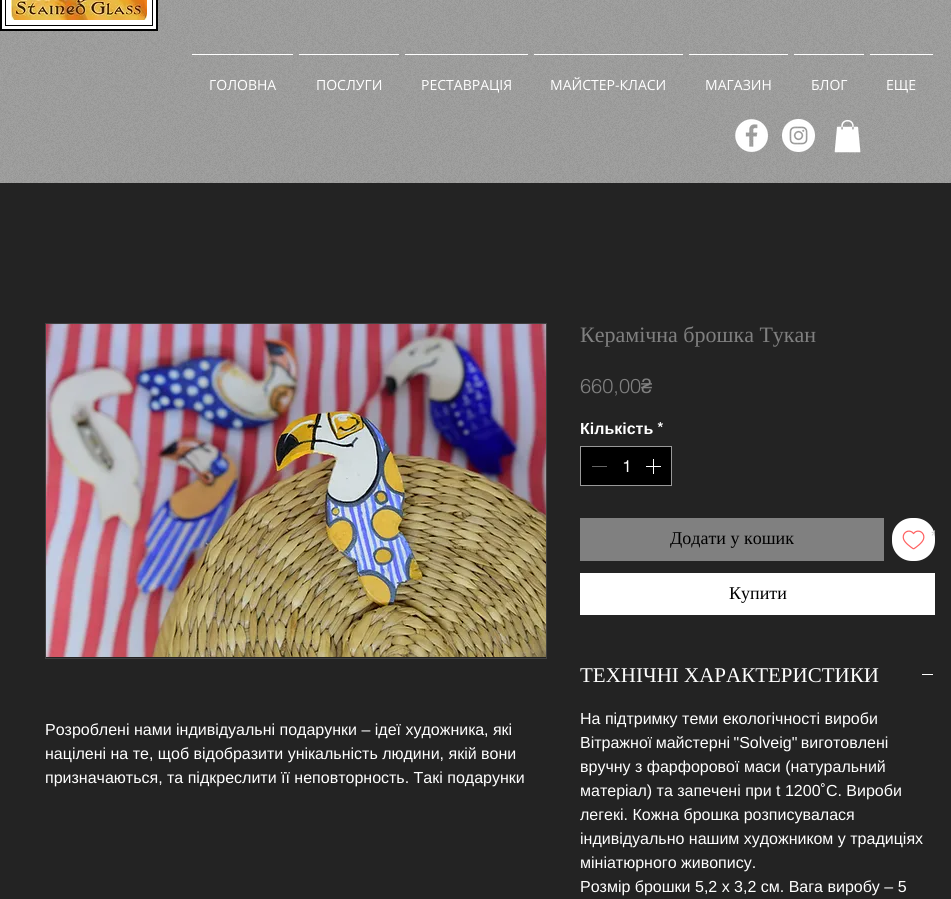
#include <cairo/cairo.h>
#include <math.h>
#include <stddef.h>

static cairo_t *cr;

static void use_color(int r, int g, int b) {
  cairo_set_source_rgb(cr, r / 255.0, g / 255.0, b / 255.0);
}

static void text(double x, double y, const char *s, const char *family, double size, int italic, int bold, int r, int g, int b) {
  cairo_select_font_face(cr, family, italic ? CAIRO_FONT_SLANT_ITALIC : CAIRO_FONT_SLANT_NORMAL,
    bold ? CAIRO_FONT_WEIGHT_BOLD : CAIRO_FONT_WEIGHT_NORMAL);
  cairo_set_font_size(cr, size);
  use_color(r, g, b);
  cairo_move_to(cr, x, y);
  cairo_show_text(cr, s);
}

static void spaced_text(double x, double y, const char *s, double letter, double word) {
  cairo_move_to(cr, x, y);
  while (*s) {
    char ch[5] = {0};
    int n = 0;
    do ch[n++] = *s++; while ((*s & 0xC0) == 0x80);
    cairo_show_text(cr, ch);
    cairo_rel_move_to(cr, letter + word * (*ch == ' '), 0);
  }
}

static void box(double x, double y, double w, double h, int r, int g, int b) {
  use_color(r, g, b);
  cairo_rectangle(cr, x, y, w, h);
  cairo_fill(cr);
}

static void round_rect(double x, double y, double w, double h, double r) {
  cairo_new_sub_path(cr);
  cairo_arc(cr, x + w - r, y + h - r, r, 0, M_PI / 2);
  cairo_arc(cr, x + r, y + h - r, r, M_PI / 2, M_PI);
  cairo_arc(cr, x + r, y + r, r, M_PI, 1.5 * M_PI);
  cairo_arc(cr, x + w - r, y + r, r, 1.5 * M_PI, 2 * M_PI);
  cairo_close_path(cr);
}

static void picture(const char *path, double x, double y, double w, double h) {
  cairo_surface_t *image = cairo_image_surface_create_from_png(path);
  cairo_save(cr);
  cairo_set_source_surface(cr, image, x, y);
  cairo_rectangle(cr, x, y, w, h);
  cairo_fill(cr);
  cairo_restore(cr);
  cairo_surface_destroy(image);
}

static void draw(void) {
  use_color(160, 160, 159);
  cairo_paint(cr);
  picture("img_01.png", 0, 0, 951, 183);
  use_color(255, 255, 255);
  cairo_rectangle(cr, 1, -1, 156, 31);
  cairo_fill_preserve(cr);
  use_color(0, 0, 0);
  cairo_stroke(cr);
  picture("img_02.png", 11, 0, 136, 20);
  cairo_rectangle(cr, 5.5, -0.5, 147, 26);
  cairo_set_line_width(cr, 1);
  cairo_stroke(cr);
  box(192, 54, 101, 1, 255, 255, 255);
  box(299, 54, 100, 1, 255, 255, 255);
  box(405, 54, 123, 1, 255, 255, 255);
  box(534, 54, 149, 1, 255, 255, 255);
  box(689, 54, 99, 1, 255, 255, 255);
  box(794, 54, 70, 1, 255, 255, 255);
  box(870, 54, 63, 1, 255, 255, 255);
  picture("img_03.png", 735, 119, 33, 33);
  picture("img_04.png", 782, 119, 33, 33);
  picture("img_05.png", 834, 120, 27, 33);
  box(0, 183, 951, 716, 35, 35, 35);
  cairo_rectangle(cr, 45.5, 323.5, 501, 335);
  use_color(64, 64, 64);
  cairo_stroke(cr);
  picture("img_06.png", 46, 324, 500, 333);
  use_color(0, 0, 0);
  cairo_rectangle(cr, 580.5, 446.5, 91, 39);
  cairo_fill_preserve(cr);
  use_color(153, 153, 153);
  cairo_stroke(cr);
  box(592, 466, 15, 1, 100, 100, 100);
  picture("img_07.png", 646, 459, 15, 15);
  box(580, 518, 304, 43, 128, 128, 128);
  use_color(255, 255, 255);
  round_rect(892, 518, 43, 43, 20);
  cairo_fill(cr);
  picture("img_08.png", 902, 530, 23, 20);
  box(580, 573, 355, 42, 255, 255, 255);
  box(922, 674, 11, 1, 255, 255, 255);
  text(209, 90, "ГОЛОВНА", "Open Sans", 14, 0, 0, 255, 255, 255);
  text(316, 90, "ПОСЛУГИ", "Open Sans", 14, 0, 0, 255, 255, 255);
  text(421, 90, "РЕСТАВРАЦІЯ", "Open Sans", 14, 0, 0, 255, 255, 255);
  text(550, 90, "МАЙСТЕР-КЛАСИ", "Open Sans", 14, 0, 0, 255, 255, 255);
  text(705, 90, "МАГАЗИН", "Open Sans", 14, 0, 0, 255, 255, 255);
  text(811, 90, "БЛОГ", "Open Sans", 14, 0, 0, 255, 255, 255);
  text(886, 90, "ЕЩЕ", "Open Sans", 14, 0, 0, 255, 255, 255);
  text(45, 735, "Розроблені нами індивідуальні подарунки – ідеї художника, які", "Liberation Sans", 16, 0, 0, 255, 255, 255);
  text(45, 759, "націлені на те, щоб відобразити унікальність людини, якій вони", "Liberation Sans", 16, 0, 0, 255, 255, 255);
  text(45, 783, "призначаються, та підкреслити її неповторность. Такі подарунки", "Liberation Sans", 16, 0, 0, 255, 255, 255);
  text(580, 342, "Керамічна брошка Тукан", "Liberation Serif", 22, 0, 0, 128, 128, 128);
  text(580, 393, "660,00", "helvetica Light", 20, 0, 0, 128, 128, 128);
  text(641, 393, "₴", "Liberation Sans", 20, 0, 0, 128, 128, 128);
  text(580, 434, "Кількість", "Liberation Sans", 16, 0, 1, 255, 255, 255);
  text(657, 434, "*", "helvetica", 16, 0, 1, 255, 255, 255);
  text(622, 472, "1", "helvetica", 16, 0, 1, 255, 255, 255);
  text(670, 544, "Додати у кошик", "Liberation Serif", 18, 0, 0, 0, 0, 0);
  cairo_save(cr);
  cairo_rectangle(cr, 892, 523, 43, 32);
  cairo_clip(cr);
  text(928, 544, "*", "Cinzel", 18, 1, 0, 206, 206, 206);
  cairo_restore(cr);
  text(729, 599, "Купити", "Liberation Serif", 18, 0, 0, 0, 0, 0);
  text(580, 682, "ТЕХНІЧНІ ХАРАКТЕРИСТИКИ", "Liberation Serif", 21, 0, 0, 255, 255, 255);
  text(580, 724, "На підтримку теми екологічності вироби", "Liberation Sans", 16, 0, 0, 255, 255, 255);
  spaced_text(580, 748, "Вітражної майстерні \"Solveig\" виготовлені", 0, -1);
  text(580, 772, "вручну з фарфорової маси (натуральний", "Liberation Sans", 16, 0, 0, 255, 255, 255);
  text(580, 796, "матеріал) та запечені при t 1200˚C. Вироби", "Liberation Sans", 16, 0, 0, 255, 255, 255);
  text(580, 820, "легекі. Кожна брошка розписувалася", "Liberation Sans", 16, 0, 0, 255, 255, 255);
  text(580, 844, "індивідуально нашим художником у традиціях", "Liberation Sans", 16, 0, 0, 255, 255, 255);
  text(580, 868, "мініатюрного живопису.", "Liberation Sans", 16, 0, 0, 255, 255, 255);
  text(580, 892, "Розмір брошки 5,2 х 3,2 см. Вага виробу – 5", "Liberation Sans", 16, 0, 0, 255, 255, 255);
}

int main(void) {
  cairo_surface_t *surface = cairo_image_surface_create(CAIRO_FORMAT_RGB24, 951, 899);
  cr = cairo_create(surface);
  cairo_font_options_t *options = cairo_font_options_create();
  cairo_font_options_set_hint_metrics(options, CAIRO_HINT_METRICS_OFF);
  cairo_font_options_set_hint_style(options, CAIRO_HINT_STYLE_NONE);
  cairo_set_font_options(cr, options);
  cairo_set_miter_limit(cr, 4);
  draw();
  cairo_surface_write_to_png(surface, "out.png");
  cairo_font_options_destroy(options);
  cairo_destroy(cr);
  cairo_surface_destroy(surface);
  return 0;
}
